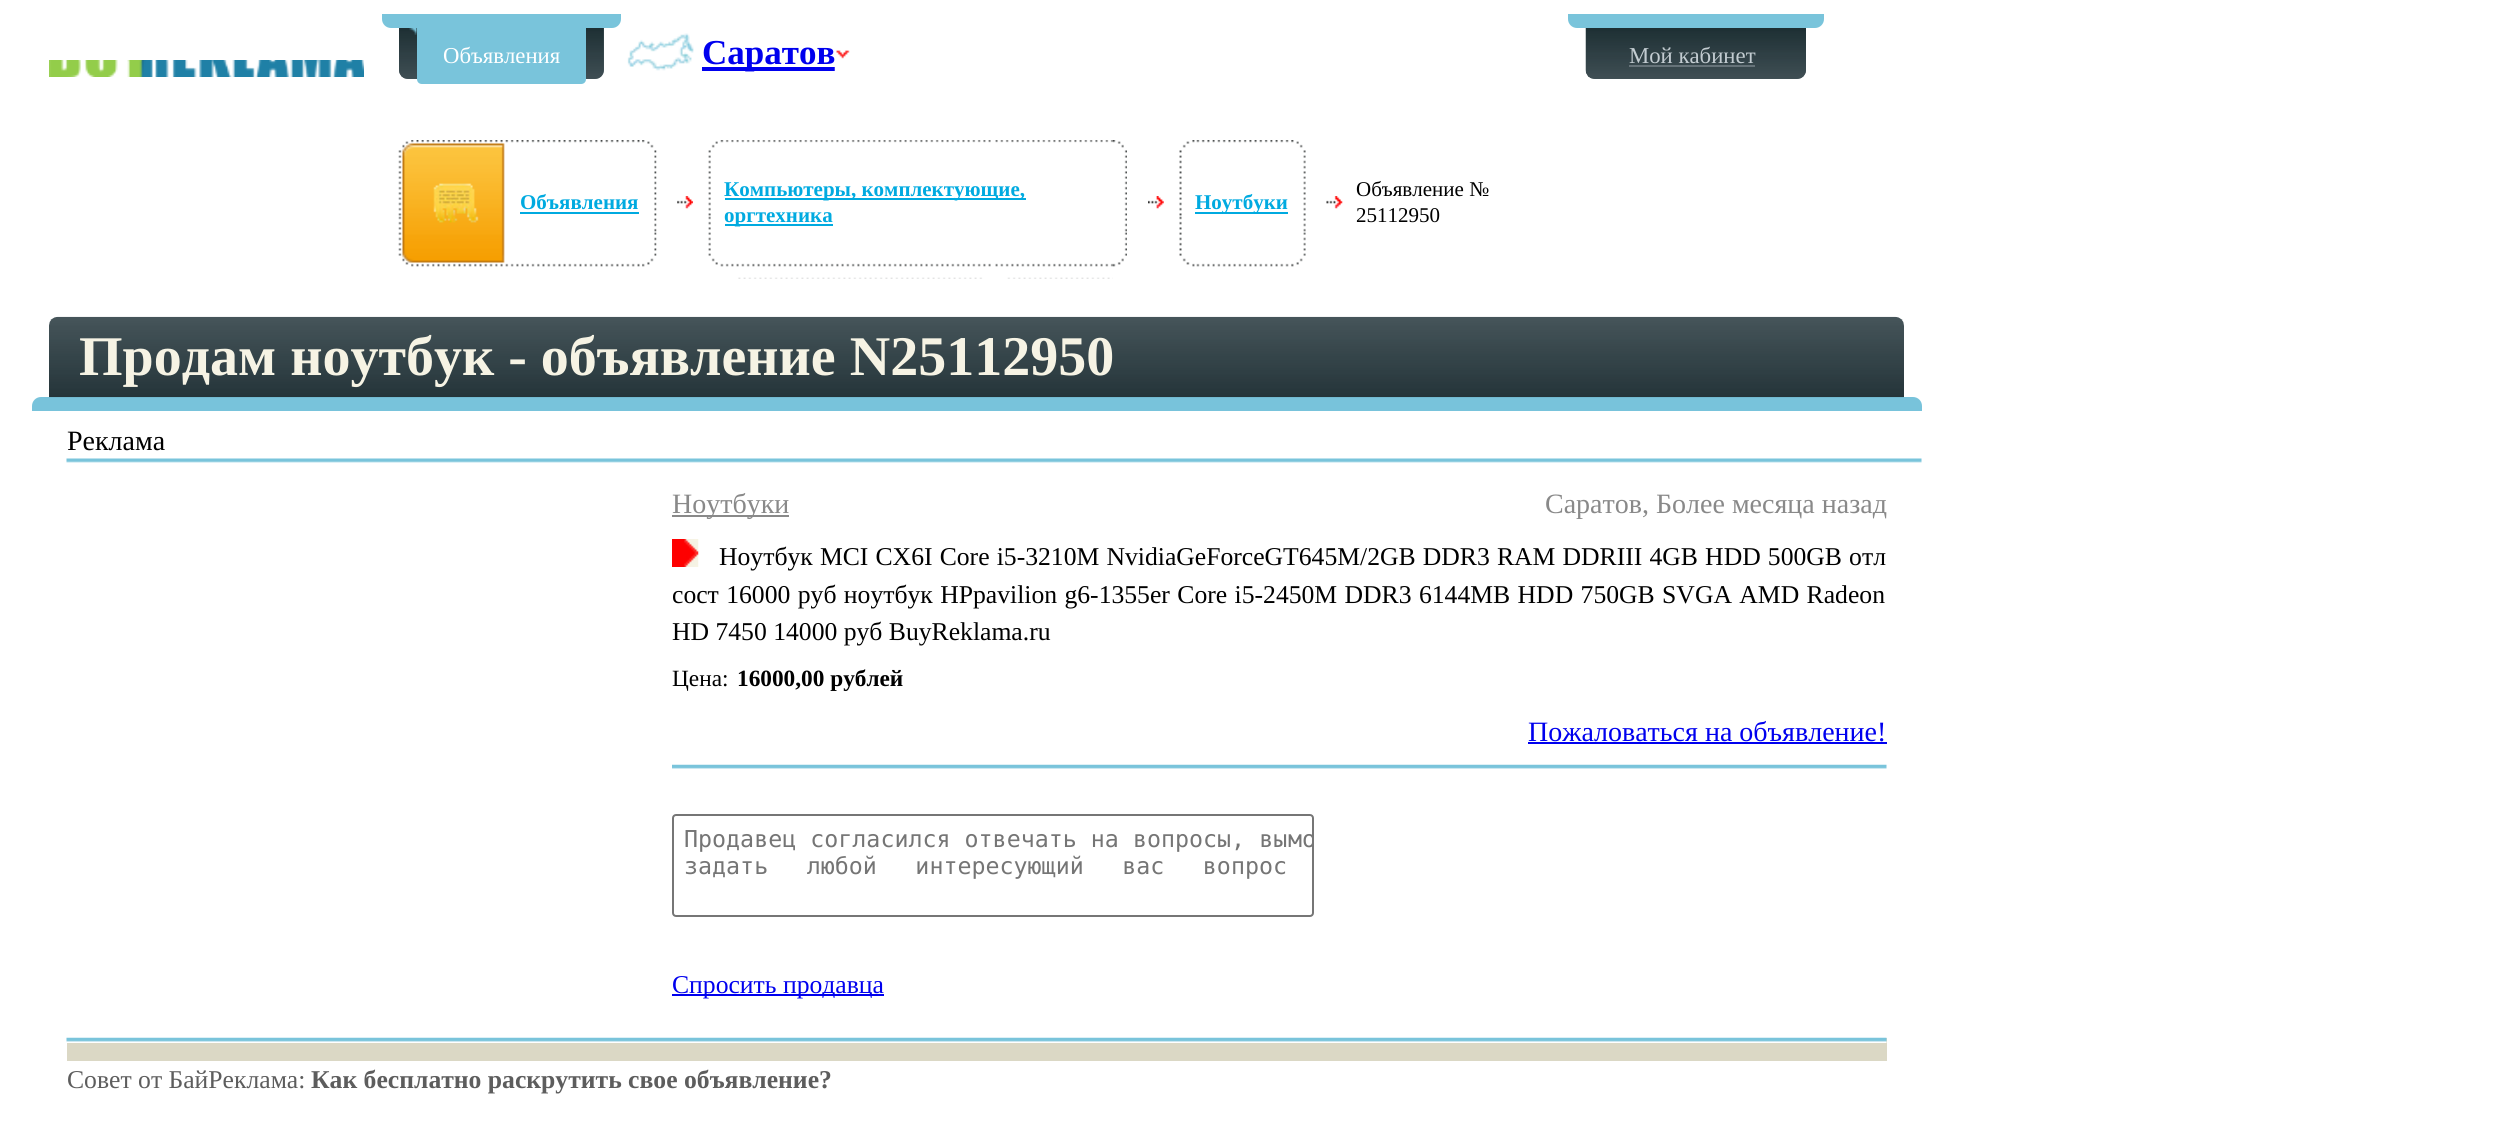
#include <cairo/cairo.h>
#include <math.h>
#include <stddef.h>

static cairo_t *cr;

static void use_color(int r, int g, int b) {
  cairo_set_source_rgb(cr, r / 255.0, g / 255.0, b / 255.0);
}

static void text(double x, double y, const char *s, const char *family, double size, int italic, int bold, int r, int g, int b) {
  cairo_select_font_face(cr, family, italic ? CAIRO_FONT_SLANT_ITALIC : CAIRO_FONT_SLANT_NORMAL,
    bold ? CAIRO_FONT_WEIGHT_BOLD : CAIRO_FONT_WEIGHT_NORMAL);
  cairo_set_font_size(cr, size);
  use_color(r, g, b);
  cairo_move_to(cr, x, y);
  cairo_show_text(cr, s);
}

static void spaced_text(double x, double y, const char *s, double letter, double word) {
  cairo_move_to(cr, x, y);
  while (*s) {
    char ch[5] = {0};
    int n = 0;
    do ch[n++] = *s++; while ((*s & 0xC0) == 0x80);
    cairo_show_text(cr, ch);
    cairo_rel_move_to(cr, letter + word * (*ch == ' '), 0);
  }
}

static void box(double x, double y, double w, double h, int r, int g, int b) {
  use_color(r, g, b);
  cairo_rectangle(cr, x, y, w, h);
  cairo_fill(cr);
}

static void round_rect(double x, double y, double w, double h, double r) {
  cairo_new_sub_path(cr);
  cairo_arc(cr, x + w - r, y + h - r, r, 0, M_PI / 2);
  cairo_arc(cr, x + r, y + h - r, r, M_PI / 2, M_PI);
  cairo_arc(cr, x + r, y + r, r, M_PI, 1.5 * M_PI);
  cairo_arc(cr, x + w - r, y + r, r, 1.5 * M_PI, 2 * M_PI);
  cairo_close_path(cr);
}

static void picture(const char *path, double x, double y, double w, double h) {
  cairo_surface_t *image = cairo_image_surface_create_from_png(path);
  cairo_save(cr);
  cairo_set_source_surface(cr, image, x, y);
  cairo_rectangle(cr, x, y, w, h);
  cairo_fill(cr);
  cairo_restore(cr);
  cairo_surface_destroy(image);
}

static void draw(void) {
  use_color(255, 255, 255);
  cairo_paint(cr);
  use_color(121, 196, 219);
  cairo_new_path(cr);
  cairo_move_to(cr, 382, 14);
  cairo_line_to(cr, 621, 14);
  cairo_line_to(cr, 621, 19);
  cairo_curve_to(cr, 621, 24, 617, 28, 612, 28);
  cairo_line_to(cr, 391, 28);
  cairo_curve_to(cr, 386, 28, 382, 24, 382, 19);
  cairo_close_path(cr);
  cairo_fill(cr);
  use_color(67, 82, 88);
  cairo_new_path(cr);
  cairo_move_to(cr, 399, 28);
  cairo_line_to(cr, 604, 28);
  cairo_line_to(cr, 604, 70);
  cairo_curve_to(cr, 604, 75, 600, 79, 595, 79);
  cairo_line_to(cr, 408, 79);
  cairo_curve_to(cr, 403, 79, 399, 75, 399, 70);
  cairo_close_path(cr);
  cairo_fill(cr);
  picture("img_01.png", 399, 28, 205, 51);
  use_color(121, 196, 219);
  cairo_new_path(cr);
  cairo_move_to(cr, 417, 28);
  cairo_line_to(cr, 586, 28);
  cairo_line_to(cr, 586, 79);
  cairo_curve_to(cr, 586, 82, 584, 84, 581, 84);
  cairo_line_to(cr, 422, 84);
  cairo_curve_to(cr, 419, 84, 417, 82, 417, 79);
  cairo_close_path(cr);
  cairo_fill(cr);
  picture("img_02.png", 409, 28, 8, 7);
  picture("img_03.png", 627, 33, 67, 38);
  box(702, 67, 133, 4, 0, 0, 238);
  picture("img_04.png", 834, 50, 16, 21);
  picture("img_05.png", 398, 140, 121, 127);
  picture("img_06.png", 402, 143, 103, 120);
  picture("img_07.png", 521, 140, 119, 127);
  box(520, 212, 119, 2, 0, 170, 224);
  picture("img_08.png", 642, 140, 15, 127);
  picture("img_09.png", 677, 196, 16, 13);
  picture("img_10.png", 708, 140, 16, 127);
  picture("img_11.png", 725, 140, 388, 139);
  box(725, 198, 301, 2, 0, 170, 224);
  box(725, 224, 108, 2, 0, 170, 224);
  picture("img_12.png", 1113, 140, 14, 127);
  picture("img_13.png", 1148, 196, 16, 13);
  picture("img_14.png", 1179, 140, 16, 127);
  picture("img_15.png", 1196, 140, 96, 127);
  box(1195, 212, 93, 2, 0, 170, 224);
  picture("img_16.png", 1291, 140, 15, 127);
  picture("img_17.png", 1326, 196, 17, 13);
  use_color(121, 196, 219);
  cairo_new_path(cr);
  cairo_move_to(cr, 1568, 14);
  cairo_line_to(cr, 1824, 14);
  cairo_line_to(cr, 1824, 19);
  cairo_curve_to(cr, 1824, 24, 1820, 28, 1815, 28);
  cairo_line_to(cr, 1577, 28);
  cairo_curve_to(cr, 1572, 28, 1568, 24, 1568, 19);
  cairo_close_path(cr);
  cairo_fill(cr);
  use_color(67, 82, 88);
  cairo_new_path(cr);
  cairo_move_to(cr, 1586, 28);
  cairo_line_to(cr, 1806, 28);
  cairo_line_to(cr, 1806, 70);
  cairo_curve_to(cr, 1806, 75, 1802, 79, 1797, 79);
  cairo_line_to(cr, 1595, 79);
  cairo_curve_to(cr, 1590, 79, 1586, 75, 1586, 70);
  cairo_close_path(cr);
  cairo_fill(cr);
  picture("img_18.png", 1585, 28, 221, 51);
  box(1629, 65, 126, 2, 102, 115, 121);
  picture("img_19.png", 49, 60, 315, 17);
  use_color(120, 195, 219);
  cairo_new_path(cr);
  cairo_move_to(cr, 41, 397);
  cairo_line_to(cr, 1913, 397);
  cairo_curve_to(cr, 1918, 397, 1922, 401, 1922, 406);
  cairo_line_to(cr, 1922, 411);
  cairo_line_to(cr, 32, 411);
  cairo_line_to(cr, 32, 406);
  cairo_curve_to(cr, 32, 401, 36, 397, 41, 397);
  cairo_close_path(cr);
  cairo_fill(cr);
  picture("img_20.png", 49, 316, 1855, 82);
  picture("img_21.png", 66, 458, 1856, 5);
  box(672, 515, 117, 2, 137, 137, 137);
  picture("img_22.png", 672, 539, 27, 28);
  box(1528, 742, 359, 2, 0, 0, 238);
  picture("img_23.png", 672, 764, 1215, 5);
  round_rect(673, 815, 640, 101, 3);
  use_color(118, 118, 118);
  cairo_stroke(cr);
  box(672, 994, 212, 2, 0, 0, 238);
  box(67, 1038, 1820, 23, 219, 216, 197);
  picture("img_24.png", 66, 1037, 1821, 6);
  text(443, 63, "Объявления", "Liberation Serif", 22.75, 0, 0, 255, 255, 255);
  text(702, 64, "Саратов", "Liberation Serif", 35, 0, 1, 0, 0, 238);
  text(520, 209, "Объявления", "Liberation Serif", 21, 0, 1, 0, 170, 224);
  text(724, 196, "Компьютеры, комплектующие,", "Liberation Serif", 21, 0, 1, 0, 170, 224);
  text(724, 222, "оргтехника", "Liberation Serif", 21, 0, 1, 0, 170, 224);
  text(1195, 209, "Ноутбуки", "Liberation Serif", 21, 0, 1, 0, 170, 224);
  text(1356, 196, "Объявление №", "Liberation Serif", 21, 0, 0, 0, 0, 0);
  text(1356, 222, "25112950", "Liberation Serif", 21, 0, 0, 0, 0, 0);
  text(1629, 63, "Мой кабинет", "Liberation Serif", 22.75, 0, 0, 195, 204, 209);
  text(79, 375, "Продам ноутбук - объявление N25112950", "Liberation Serif", 56, 0, 1, 246, 243, 228);
  text(67, 450, "Реклама", "Liberation Serif", 28, 0, 0, 0, 0, 0);
  text(672, 513, "Ноутбуки", "Liberation Serif", 28, 0, 0, 137, 137, 137);
  text(1545, 513, "Саратов, Более месяца назад", "Liberation Serif", 28, 0, 0, 137, 137, 137);
  cairo_set_font_size(cr, 25.65);
  use_color(0, 0, 0);
  spaced_text(719, 565, "Ноутбук MCI CX6I Core i5-3210M NvidiaGeForceGT645M/2GB DDR3 RAM DDRIII 4GB HDD 500GB отл", 0, 0.75);
  spaced_text(672, 603, "сост 16000 руб ноутбук HPpavilion g6-1355er Core i5-2450M DDR3 6144MB HDD 750GB SVGA AMD Radeon", 0, 1);
  text(672, 640, "HD 7450 14000 руб BuyReklama.ru", "Liberation Serif", 25.65, 0, 0, 0, 0, 0);
  text(672, 686, "Цена:", "Liberation Serif", 23.3, 0, 0, 0, 0, 0);
  text(737, 686, "16000,00 рублей", "Liberation Serif", 23.3, 0, 1, 0, 0, 0);
  text(1528, 741, "Пожаловаться на объявление!", "Liberation Serif", 28, 0, 0, 0, 0, 238);
  text(684, 847, "Продавец согласился отвечать на вопросы, вы", "DejaVu Sans Mono", 23.3, 0, 0, 117, 117, 117);
  cairo_save(cr);
  cairo_rectangle(cr, 674, 816, 639, 99);
  cairo_clip(cr);
  text(1288, 847, "мо", "DejaVu Sans Mono", 23.3, 0, 0, 117, 117, 117);
  cairo_restore(cr);
  spaced_text(684, 874, "задать любой интересующий вас вопрос", 0, 24.5);
  text(672, 993, "Спросить продавца", "Liberation Serif", 25.65, 0, 0, 0, 0, 238);
  text(67, 1088, "Совет от БайРеклама:", "Liberation Serif", 25.65, 0, 0, 93, 93, 93);
  text(311, 1088, "Как бесплатно раскрутить свое объявление?", "Liberation Serif", 25.65, 0, 1, 93, 93, 93);
}

int main(void) {
  cairo_surface_t *surface = cairo_image_surface_create(CAIRO_FORMAT_RGB24, 2509, 1129);
  cr = cairo_create(surface);
  cairo_font_options_t *options = cairo_font_options_create();
  cairo_font_options_set_hint_metrics(options, CAIRO_HINT_METRICS_OFF);
  cairo_font_options_set_hint_style(options, CAIRO_HINT_STYLE_NONE);
  cairo_set_font_options(cr, options);
  cairo_set_miter_limit(cr, 4);
  draw();
  cairo_surface_write_to_png(surface, "out.png");
  cairo_font_options_destroy(options);
  cairo_destroy(cr);
  cairo_surface_destroy(surface);
  return 0;
}
